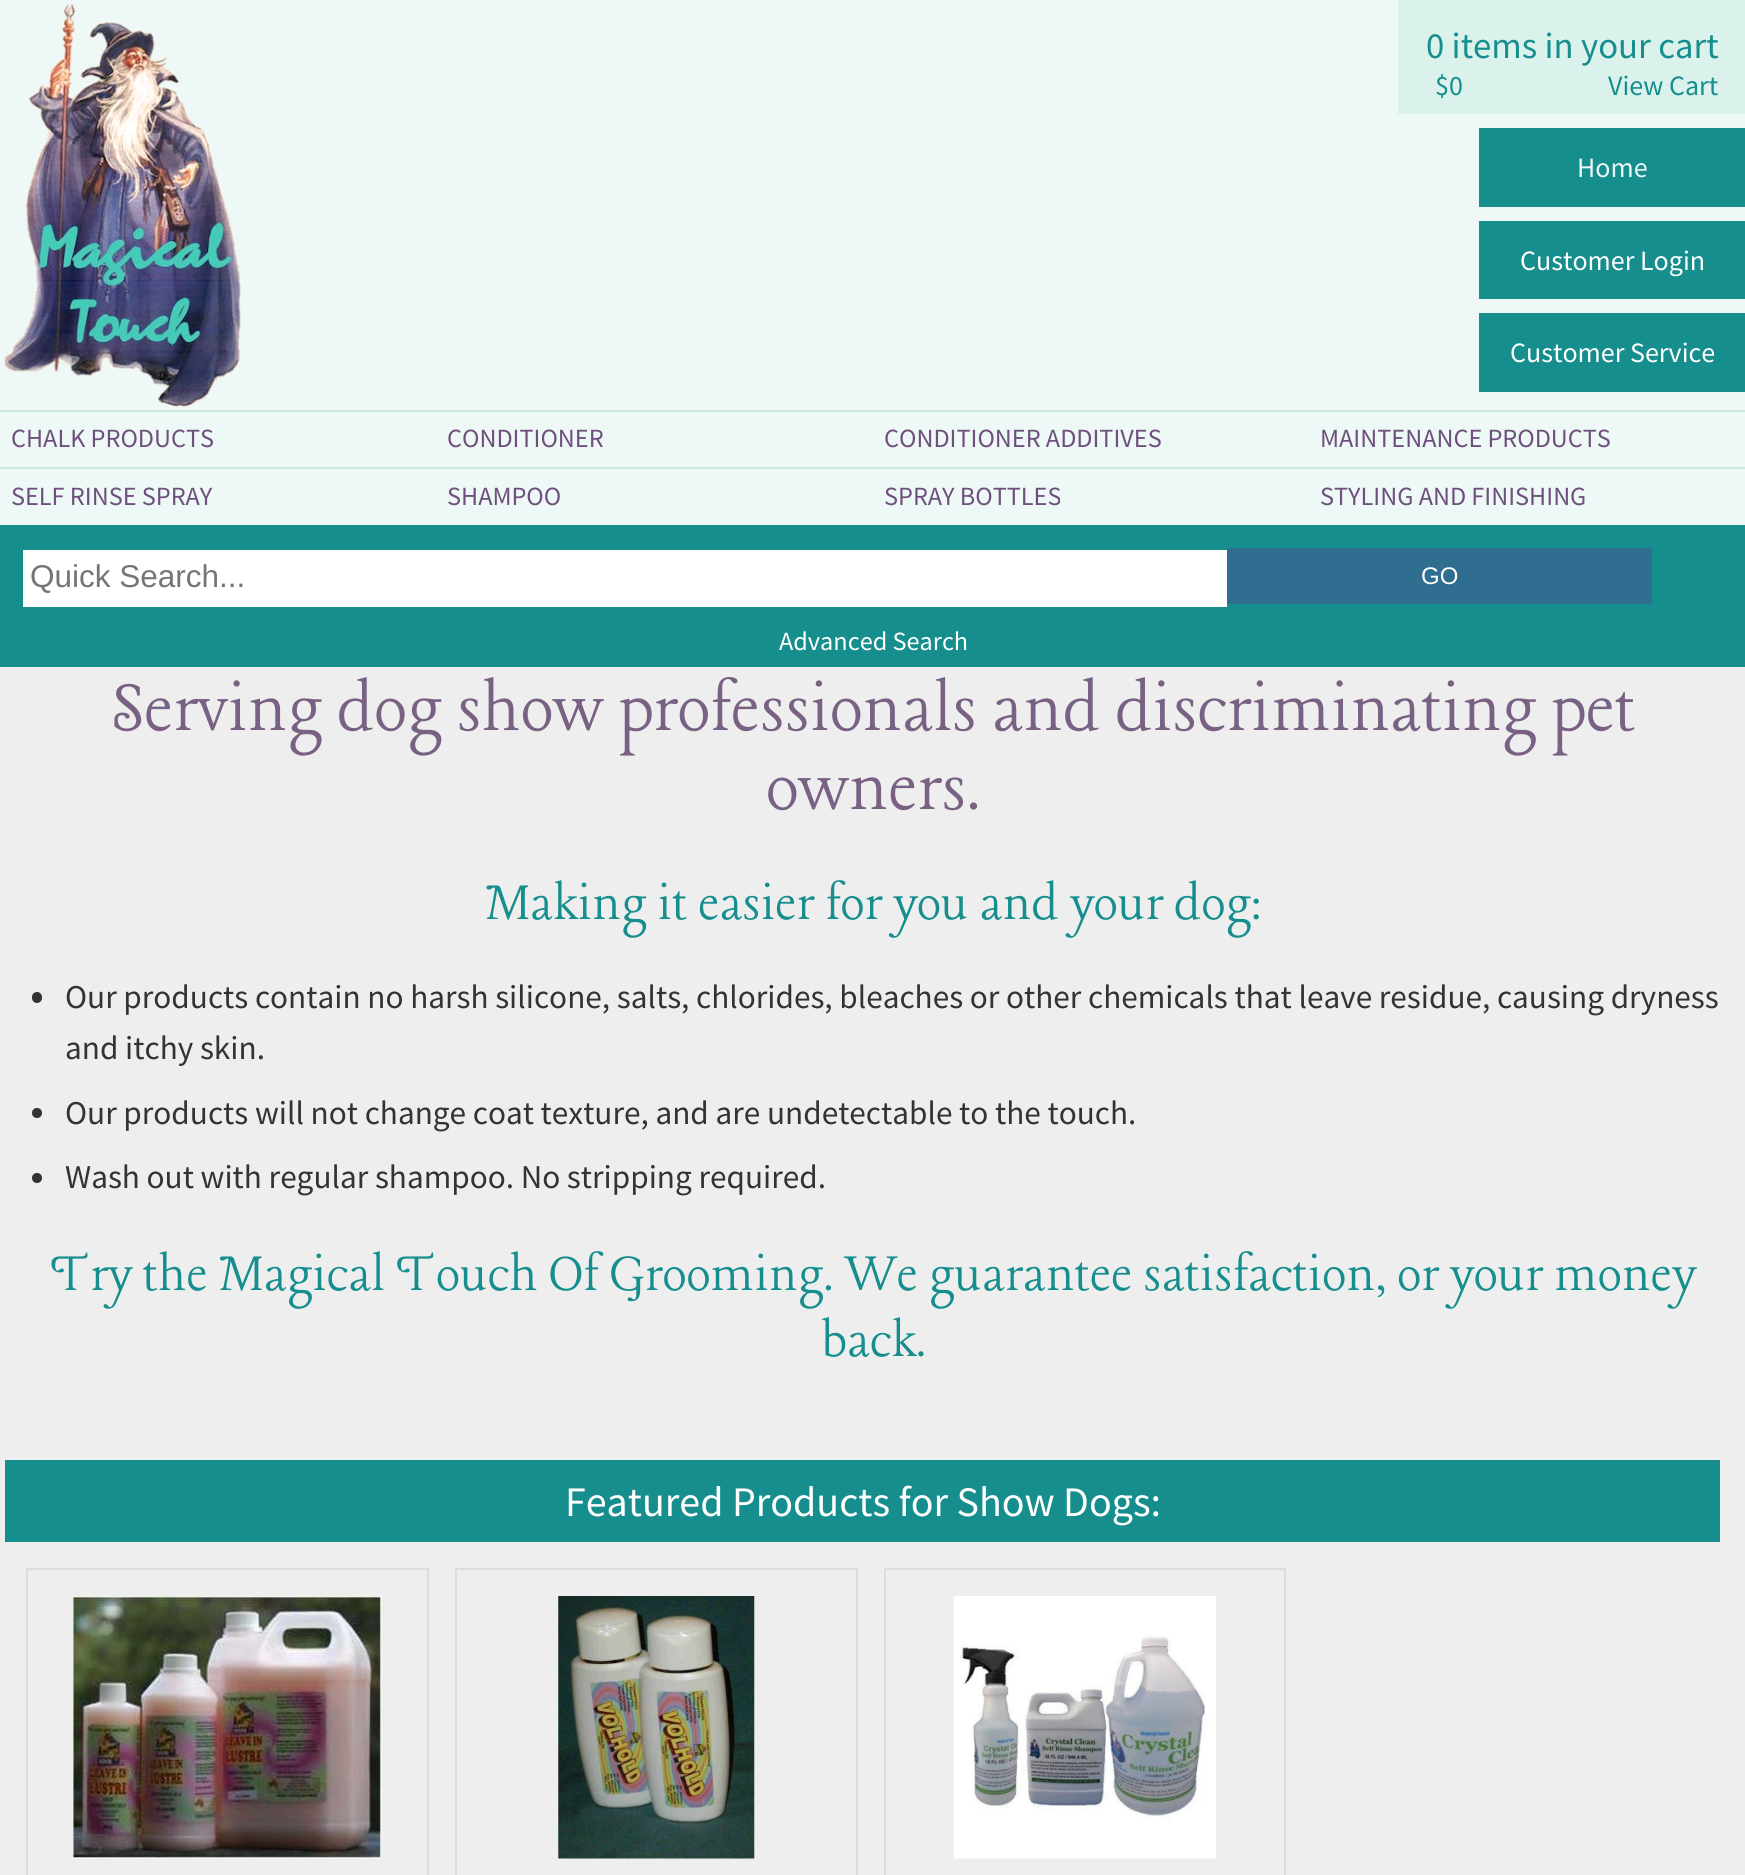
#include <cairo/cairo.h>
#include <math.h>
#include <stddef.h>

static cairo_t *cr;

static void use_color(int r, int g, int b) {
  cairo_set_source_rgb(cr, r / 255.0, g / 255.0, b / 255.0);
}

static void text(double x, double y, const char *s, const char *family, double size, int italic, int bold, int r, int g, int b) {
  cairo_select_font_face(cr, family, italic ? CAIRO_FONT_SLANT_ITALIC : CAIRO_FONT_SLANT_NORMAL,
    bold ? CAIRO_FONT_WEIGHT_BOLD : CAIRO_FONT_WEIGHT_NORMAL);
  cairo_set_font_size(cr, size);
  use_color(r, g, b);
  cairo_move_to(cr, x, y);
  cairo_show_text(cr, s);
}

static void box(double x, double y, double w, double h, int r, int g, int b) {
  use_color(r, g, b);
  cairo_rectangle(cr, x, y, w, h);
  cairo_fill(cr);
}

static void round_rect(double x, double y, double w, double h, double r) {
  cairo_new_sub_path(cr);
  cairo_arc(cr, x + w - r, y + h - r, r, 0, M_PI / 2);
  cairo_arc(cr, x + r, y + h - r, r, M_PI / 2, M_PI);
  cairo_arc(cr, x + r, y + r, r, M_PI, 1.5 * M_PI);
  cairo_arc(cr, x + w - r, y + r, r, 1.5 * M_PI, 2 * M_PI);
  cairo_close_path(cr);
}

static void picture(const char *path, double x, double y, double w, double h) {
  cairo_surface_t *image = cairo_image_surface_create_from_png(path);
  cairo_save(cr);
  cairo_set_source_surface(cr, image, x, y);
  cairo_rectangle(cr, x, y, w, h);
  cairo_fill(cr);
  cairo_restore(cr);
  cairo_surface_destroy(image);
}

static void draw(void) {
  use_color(238, 238, 238);
  cairo_paint(cr);
  box(0, 0, 1745, 525, 238, 248, 246);
  box(1398, 0, 347, 114, 219, 242, 236);
  box(1479, 128, 266, 79, 21, 142, 141);
  box(1479, 221, 266, 78, 21, 142, 141);
  box(1479, 313, 266, 79, 21, 142, 141);
  picture("img_01.png", 4, 3, 240, 404);
  box(0, 410, 1745, 2, 203, 231, 223);
  box(0, 467, 1745, 2, 203, 231, 223);
  box(0, 525, 1745, 142, 21, 142, 141);
  box(23, 550, 1204, 57, 255, 255, 255);
  box(1227, 548, 425, 56, 47, 109, 145);
  use_color(51, 51, 51);
  round_rect(32, 992, 10, 11, 5);
  cairo_fill(cr);
  cairo_arc(cr, 37, 1113, 5, 0, 2 * M_PI);
  cairo_fill(cr);
  cairo_arc(cr, 37, 1178, 5, 0, 2 * M_PI);
  cairo_fill(cr);
  box(5, 1460, 1715, 82, 21, 142, 141);
  cairo_rectangle(cr, 27, 1569, 401, 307);
  use_color(221, 221, 221);
  cairo_stroke(cr);
  picture("img_02.png", 73, 1596, 309, 263);
  cairo_rectangle(cr, 456, 1569, 401, 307);
  cairo_stroke(cr);
  picture("img_03.png", 558, 1596, 197, 263);
  cairo_rectangle(cr, 885, 1569, 400, 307);
  cairo_stroke(cr);
  picture("img_04.png", 953, 1596, 264, 263);
  text(1426, 58, "0 items in your cart", "Source Sans Pro", 36.75, 0, 0, 21, 142, 141);
  text(1435, 95, "$0", "Source Sans Pro", 28, 0, 0, 21, 142, 141);
  text(1608, 95, "View Cart", "Source Sans Pro", 28, 0, 0, 21, 142, 141);
  text(1577, 177, "Home", "Source Sans Pro", 28, 0, 0, 238, 248, 246);
  text(1520, 270, "Customer Login", "Source Sans Pro", 28, 0, 0, 255, 255, 255);
  text(1510, 362, "Customer Service", "Source Sans Pro", 28, 0, 0, 255, 255, 255);
  text(11, 447, "CHALK PRODUCTS", "Source Sans Pro", 26.25, 0, 0, 110, 80, 124);
  text(447, 447, "CONDITIONER", "Source Sans Pro", 26.25, 0, 0, 110, 80, 124);
  text(884, 447, "CONDITIONER ADDITIVES", "Source Sans Pro", 26.25, 0, 0, 110, 80, 124);
  text(1320, 447, "MAINTENANCE PRODUCTS", "Source Sans Pro", 26.25, 0, 0, 110, 80, 124);
  text(11, 505, "SELF RINSE SPRAY", "Source Sans Pro", 26.25, 0, 0, 110, 80, 124);
  text(447, 505, "SHAMPOO", "Source Sans Pro", 26.25, 0, 0, 110, 80, 124);
  text(884, 505, "SPRAY BOTTLES", "Source Sans Pro", 26.25, 0, 0, 110, 80, 124);
  text(1320, 505, "STYLING AND FINISHING", "Source Sans Pro", 26.25, 0, 0, 110, 80, 124);
  text(30, 587, "Quick Search...", "Liberation Sans", 31.5, 0, 0, 117, 117, 117);
  text(1421, 584, "GO", "Liberation Sans", 24, 0, 0, 255, 255, 255);
  text(779, 650, "Advanced Search", "Source Sans Pro", 26.25, 0, 0, 255, 255, 255);
  text(111, 730, "Serving dog show professionals and discriminating pet", "Lancelot", 78.75, 0, 0, 120, 97, 131);
  text(766, 809, "owners.", "Lancelot", 78.75, 0, 0, 120, 97, 131);
  text(485, 919, "Making it easier for you and your dog:", "Lancelot", 57.75, 0, 0, 21, 142, 141);
  text(65, 1008, "Our products contain no harsh silicone, salts, chlorides, bleaches or other chemicals that leave residue, causing dryness", "Source Sans Pro", 33.25, 0, 0, 51, 51, 51);
  text(65, 1059, "and itchy skin.", "Source Sans Pro", 33.25, 0, 0, 51, 51, 51);
  text(65, 1124, "Our products will not change coat texture, and are undetectable to the touch.", "Source Sans Pro", 33.25, 0, 0, 51, 51, 51);
  text(65, 1188, "Wash out with regular shampoo. No stripping required.", "Source Sans Pro", 33.25, 0, 0, 51, 51, 51);
  text(50, 1290, "Try the Magical Touch Of Grooming. We guarantee satisfaction, or your money", "Lancelot", 57.75, 0, 0, 21, 142, 141);
  text(820, 1356, "back.", "Lancelot", 57.75, 0, 0, 21, 142, 141);
  text(565, 1516, "Featured Products for Show Dogs:", "Source Sans Pro", 42, 0, 0, 255, 255, 255);
}

int main(void) {
  cairo_surface_t *surface = cairo_image_surface_create(CAIRO_FORMAT_RGB24, 1745, 1875);
  cr = cairo_create(surface);
  cairo_font_options_t *options = cairo_font_options_create();
  cairo_font_options_set_hint_metrics(options, CAIRO_HINT_METRICS_OFF);
  cairo_font_options_set_hint_style(options, CAIRO_HINT_STYLE_NONE);
  cairo_set_font_options(cr, options);
  cairo_set_miter_limit(cr, 4);
  draw();
  cairo_surface_write_to_png(surface, "out.png");
  cairo_font_options_destroy(options);
  cairo_destroy(cr);
  cairo_surface_destroy(surface);
  return 0;
}
